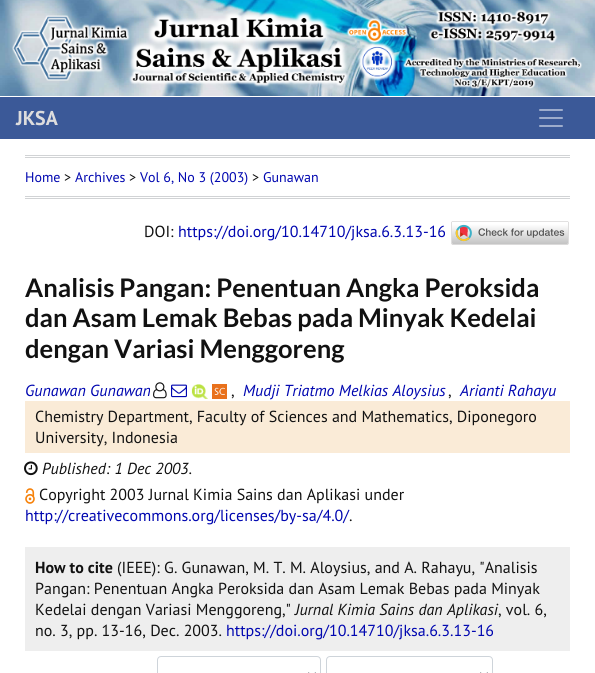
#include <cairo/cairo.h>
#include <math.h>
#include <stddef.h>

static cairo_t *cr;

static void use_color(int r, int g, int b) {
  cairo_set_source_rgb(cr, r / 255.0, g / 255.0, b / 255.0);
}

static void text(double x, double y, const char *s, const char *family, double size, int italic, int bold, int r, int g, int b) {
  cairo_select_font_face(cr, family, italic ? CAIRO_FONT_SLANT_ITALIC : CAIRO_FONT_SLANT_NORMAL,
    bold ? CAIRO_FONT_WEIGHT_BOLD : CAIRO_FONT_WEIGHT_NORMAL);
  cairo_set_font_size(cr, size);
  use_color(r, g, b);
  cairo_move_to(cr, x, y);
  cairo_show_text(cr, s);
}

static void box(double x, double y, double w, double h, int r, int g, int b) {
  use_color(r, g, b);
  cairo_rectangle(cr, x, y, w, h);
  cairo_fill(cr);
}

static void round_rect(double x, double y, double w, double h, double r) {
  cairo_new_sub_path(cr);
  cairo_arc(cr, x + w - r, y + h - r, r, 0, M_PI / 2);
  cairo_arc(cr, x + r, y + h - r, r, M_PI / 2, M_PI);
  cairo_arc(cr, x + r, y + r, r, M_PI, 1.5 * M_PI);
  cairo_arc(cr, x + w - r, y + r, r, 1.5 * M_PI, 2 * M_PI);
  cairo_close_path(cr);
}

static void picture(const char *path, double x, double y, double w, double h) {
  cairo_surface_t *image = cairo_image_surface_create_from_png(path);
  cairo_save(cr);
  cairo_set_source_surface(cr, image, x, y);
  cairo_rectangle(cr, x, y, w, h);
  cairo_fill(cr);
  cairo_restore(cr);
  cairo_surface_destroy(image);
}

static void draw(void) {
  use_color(255, 255, 255);
  cairo_paint(cr);
  picture("img_01.png", 0, 0, 595, 96);
  box(0, 97, 595, 42, 59, 89, 152);
  picture("img_02.png", 539, 109, 24, 18);
  box(25, 155, 545, 1, 209, 211, 213);
  box(25, 157, 545, 1, 209, 211, 213);
  box(25, 196, 545, 1, 209, 211, 213);
  box(25, 198, 545, 1, 209, 211, 213);
  picture("img_03.png", 451, 221, 118, 24);
  picture("img_04.png", 153, 382, 14, 17);
  picture("img_05.png", 171, 384, 16, 14);
  picture("img_06.png", 191, 384, 17, 15);
  picture("img_07.png", 212, 384, 15, 15);
  box(25, 401, 545, 52, 250, 235, 215);
  picture("img_08.png", 24, 461, 14, 15);
  picture("img_09.png", 25, 488, 10, 16);
  box(25, 547, 545, 104, 238, 238, 238);
  round_rect(157.5, 656.5, 163, 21, 3.5);
  use_color(206, 212, 218);
  cairo_set_line_width(cr, 1);
  cairo_stroke(cr);
  cairo_new_path(cr);
  cairo_move_to(cr, 308, 673);
  cairo_line_to(cr, 312, 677);
  cairo_line_to(cr, 316, 673);
  use_color(73, 80, 87);
  cairo_set_line_width(cr, 2);
  cairo_stroke(cr);
  round_rect(326.5, 656.5, 166, 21, 3.5);
  use_color(206, 212, 218);
  cairo_set_line_width(cr, 1);
  cairo_stroke(cr);
  cairo_new_path(cr);
  cairo_move_to(cr, 480, 673);
  cairo_line_to(cr, 484, 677);
  cairo_line_to(cr, 488, 673);
  use_color(73, 80, 87);
  cairo_set_line_width(cr, 2);
  cairo_stroke(cr);
  text(16, 125, "JKSA", "PT Sans", 20, 0, 1, 221, 221, 221);
  text(25, 182, "Home", "PT Sans", 14, 0, 0, 0, 6, 176);
  text(64, 182, ">", "PT Sans", 14, 0, 0, 17, 17, 17);
  text(75, 182, "Archives", "PT Sans", 14, 0, 0, 0, 6, 176);
  text(129, 182, ">", "PT Sans", 14, 0, 0, 17, 17, 17);
  text(140, 182, "Vol 6, No 3 (2003)", "PT Sans", 14, 0, 0, 0, 6, 176);
  text(252, 182, ">", "PT Sans", 14, 0, 0, 17, 17, 17);
  text(263, 182, "Gunawan", "PT Sans", 14, 0, 0, 0, 6, 176);
  text(144, 237, "DOI:", "PT Sans", 16, 0, 0, 17, 17, 17);
  text(178, 237, "https://doi.org/10.14710/jksa.6.3.13-16", "PT Sans", 16, 0, 0, 0, 6, 176);
  text(25, 297, "Analisis Pangan: Penentuan Angka Peroksida", "Lato", 25.6, 0, 1, 17, 17, 17);
  text(25, 327, "dan Asam Lemak Bebas pada Minyak Kedelai", "Lato", 25.6, 0, 1, 17, 17, 17);
  text(25, 358, "dengan Variasi Menggoreng", "Lato", 25.6, 0, 1, 17, 17, 17);
  text(25, 396, "Gunawan Gunawan", "PT Sans", 16, 1, 0, 0, 6, 176);
  text(231, 396, ",", "PT Sans", 16, 0, 0, 17, 17, 17);
  text(243, 396, "Mudji Triatmo Melkias Aloysius", "PT Sans", 16, 1, 0, 0, 6, 176);
  text(448, 396, ",", "PT Sans", 16, 0, 0, 17, 17, 17);
  text(460, 396, "Arianti Rahayu", "PT Sans", 16, 1, 0, 0, 6, 176);
  text(35, 422, "Chemistry Department, Faculty of Sciences and Mathematics, Diponegoro", "PT Sans", 16, 0, 0, 17, 17, 17);
  text(35, 443, "University, Indonesia", "PT Sans", 16, 0, 0, 17, 17, 17);
  text(42, 474, "Published: 1 Dec 2003.", "PT Sans", 16, 1, 0, 17, 17, 17);
  text(39, 500, "Copyright 2003 Jurnal Kimia Sains dan Aplikasi under", "PT Sans", 16, 0, 0, 17, 17, 17);
  text(25, 521, "http://creativecommons.org/licenses/by-sa/4.0/", "PT Sans", 16, 0, 0, 0, 6, 176);
  text(349, 521, ".", "PT Sans", 16, 0, 0, 17, 17, 17);
  text(35, 573, "How to cite", "PT Sans", 16, 0, 1, 17, 17, 17);
  text(117, 573, "(IEEE): G. Gunawan, M. T. M. Aloysius, and A. Rahayu, \"Analisis", "PT Sans", 16, 0, 0, 17, 17, 17);
  text(35, 594, "Pangan: Penentuan Angka Peroksida dan Asam Lemak Bebas pada Minyak", "PT Sans", 16, 0, 0, 17, 17, 17);
  text(35, 615, "Kedelai dengan Variasi Menggoreng,\"", "PT Sans", 16, 0, 0, 17, 17, 17);
  text(295, 615, "Jurnal Kimia Sains dan Aplikasi", "PT Sans", 16, 1, 0, 17, 17, 17);
  text(498, 615, ", vol. 6,", "PT Sans", 16, 0, 0, 17, 17, 17);
  text(35, 636, "no. 3, pp. 13-16, Dec. 2003.", "PT Sans", 16, 0, 0, 17, 17, 17);
  text(226, 636, "https://doi.org/10.14710/jksa.6.3.13-16", "PT Sans", 16, 0, 0, 0, 6, 176);
}

int main(void) {
  cairo_surface_t *surface = cairo_image_surface_create(CAIRO_FORMAT_RGB24, 595, 673);
  cr = cairo_create(surface);
  cairo_font_options_t *options = cairo_font_options_create();
  cairo_font_options_set_hint_metrics(options, CAIRO_HINT_METRICS_OFF);
  cairo_font_options_set_hint_style(options, CAIRO_HINT_STYLE_NONE);
  cairo_set_font_options(cr, options);
  cairo_set_miter_limit(cr, 4);
  draw();
  cairo_surface_write_to_png(surface, "out.png");
  cairo_font_options_destroy(options);
  cairo_destroy(cr);
  cairo_surface_destroy(surface);
  return 0;
}
